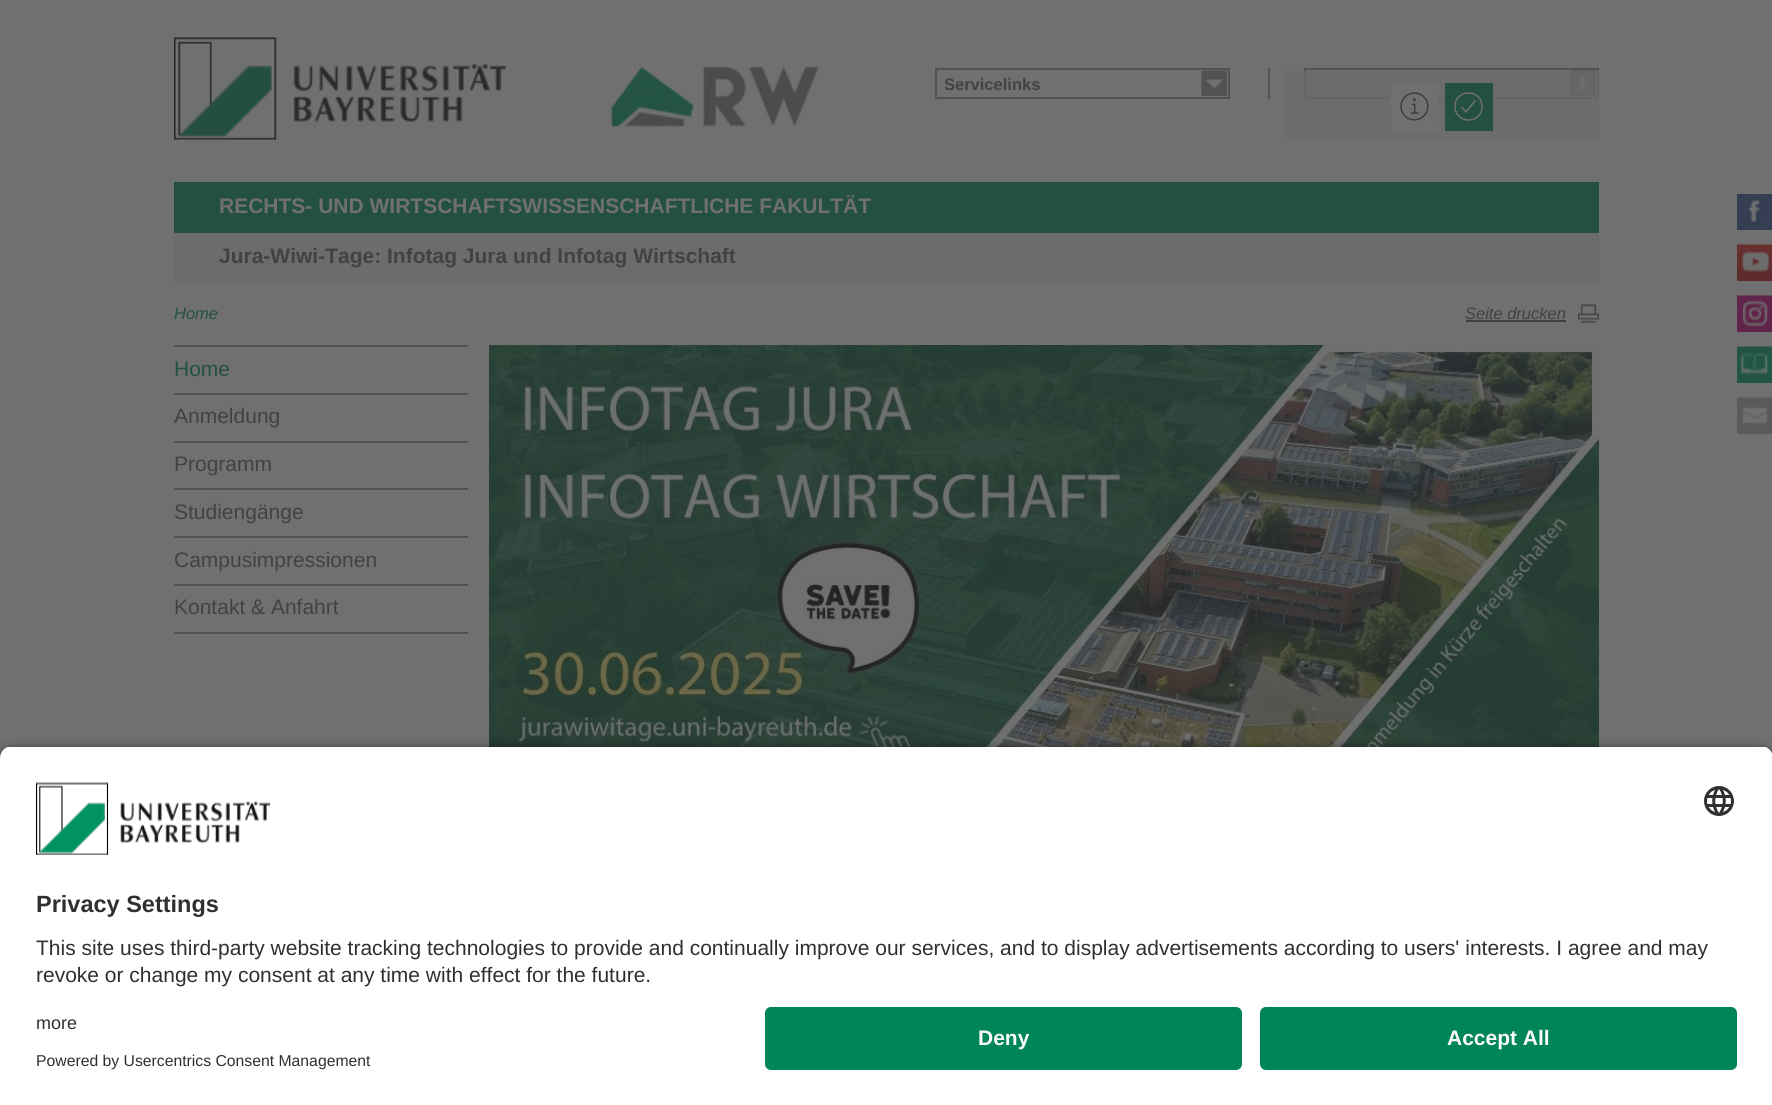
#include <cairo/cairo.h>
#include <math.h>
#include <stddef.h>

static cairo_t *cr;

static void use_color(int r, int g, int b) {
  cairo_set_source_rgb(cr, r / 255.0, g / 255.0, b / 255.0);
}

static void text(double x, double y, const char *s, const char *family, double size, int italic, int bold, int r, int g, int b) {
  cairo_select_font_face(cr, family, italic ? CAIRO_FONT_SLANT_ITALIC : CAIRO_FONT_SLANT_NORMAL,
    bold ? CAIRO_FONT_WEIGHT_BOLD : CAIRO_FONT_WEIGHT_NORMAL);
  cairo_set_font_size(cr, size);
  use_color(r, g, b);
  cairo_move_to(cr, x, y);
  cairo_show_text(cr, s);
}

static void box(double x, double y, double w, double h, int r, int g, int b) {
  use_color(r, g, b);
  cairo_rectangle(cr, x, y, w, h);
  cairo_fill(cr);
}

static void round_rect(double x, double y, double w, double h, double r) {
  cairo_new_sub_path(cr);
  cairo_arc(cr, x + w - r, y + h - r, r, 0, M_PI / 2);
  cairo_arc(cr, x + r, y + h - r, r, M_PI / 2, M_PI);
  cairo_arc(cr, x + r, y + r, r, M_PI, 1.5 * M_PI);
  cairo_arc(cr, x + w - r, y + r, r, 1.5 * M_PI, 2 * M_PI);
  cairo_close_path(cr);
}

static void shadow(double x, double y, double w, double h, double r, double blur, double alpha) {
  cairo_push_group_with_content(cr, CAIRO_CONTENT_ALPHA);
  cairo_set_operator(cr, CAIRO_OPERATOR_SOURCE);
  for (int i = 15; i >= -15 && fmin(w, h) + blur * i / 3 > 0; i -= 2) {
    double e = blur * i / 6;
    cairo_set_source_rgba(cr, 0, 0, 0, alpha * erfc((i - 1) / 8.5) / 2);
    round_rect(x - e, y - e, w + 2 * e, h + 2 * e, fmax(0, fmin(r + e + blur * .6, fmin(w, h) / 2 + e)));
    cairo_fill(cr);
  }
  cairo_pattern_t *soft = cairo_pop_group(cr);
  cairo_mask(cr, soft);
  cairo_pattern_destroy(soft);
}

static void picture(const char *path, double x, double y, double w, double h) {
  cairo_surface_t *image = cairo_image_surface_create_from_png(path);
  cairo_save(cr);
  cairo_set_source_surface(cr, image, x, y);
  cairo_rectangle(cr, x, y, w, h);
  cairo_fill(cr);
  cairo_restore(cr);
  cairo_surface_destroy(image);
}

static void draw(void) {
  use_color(112, 112, 112);
  cairo_paint(cr);
  picture("img_01.png", 174, 37, 332, 103);
  picture("img_02.png", 610, 66, 210, 62);
  picture("img_03.png", 1201, 70, 26, 26);
  cairo_rectangle(cr, 936, 69, 293, 29);
  use_color(82, 82, 82);
  cairo_stroke(cr);
  box(1268, 68, 2, 31, 82, 82, 82);
  cairo_rectangle(cr, 1305, 69, 293, 29);
  cairo_stroke(cr);
  picture("img_04.png", 1570, 70, 26, 26);
  cairo_set_source_rgba(cr, 0.424, 0.424, 0.42, 0.8);
  cairo_rectangle(cr, 1284, 71, 315, 67);
  cairo_fill(cr);
  box(1391, 83, 48, 48, 112, 112, 112);
  picture("img_05.png", 1400, 92, 29, 29);
  box(1445, 83, 48, 48, 36, 80, 65);
  cairo_new_path(cr);
  cairo_move_to(cr, 1482, 106.5);
  cairo_curve_to(cr, 1482, 88.5, 1455, 88.5, 1455, 106.5);
  cairo_curve_to(cr, 1455, 124.5, 1482, 124.5, 1482, 106.5);
  cairo_close_path(cr);
  use_color(112, 112, 112);
  cairo_set_line_width(cr, 1.5);
  cairo_stroke(cr);
  cairo_new_path(cr);
  cairo_move_to(cr, 1475, 101);
  cairo_line_to(cr, 1466, 112);
  cairo_line_to(cr, 1462, 107.5);
  cairo_set_line_cap(cr, CAIRO_LINE_CAP_ROUND);
  cairo_set_line_join(cr, CAIRO_LINE_JOIN_ROUND);
  cairo_stroke(cr);
  box(174, 182, 1425, 51, 36, 80, 65);
  box(174, 233, 1425, 49, 108, 108, 107);
  picture("img_06.png", 1578, 304, 21, 19);
  box(1466, 320, 100, 2, 66, 66, 66);
  box(1737, 194, 35, 36, 53, 62, 82);
  picture("img_07.png", 1747, 198, 14, 26);
  box(1737, 280, 35, 1, 95, 41, 36);
  picture("img_08.png", 1737, 244, 35, 37);
  box(1737, 327, 35, 5, 96, 36, 75);
  picture("img_09.png", 1737, 295, 35, 32);
  box(1737, 375, 35, 8, 36, 85, 67);
  picture("img_10.png", 1737, 346, 35, 29);
  box(1737, 424, 35, 10, 90, 90, 90);
  picture("img_11.png", 1737, 397, 35, 27);
  box(174, 632, 294, 2, 82, 82, 82);
  box(174, 345, 294, 2, 82, 82, 82);
  box(174, 393, 294, 2, 82, 82, 82);
  box(174, 441, 294, 2, 82, 82, 82);
  box(174, 488, 294, 2, 82, 82, 82);
  box(174, 536, 294, 2, 82, 82, 82);
  box(174, 584, 294, 2, 82, 82, 82);
  picture("img_12.png", 489, 345, 1110, 402);
  use_color(0, 0, 0);
  shadow(0, 750, 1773, 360, 12, 5, 0.8);
  cairo_save(cr);
  cairo_new_path(cr);
  cairo_move_to(cr, 12, 746);
  cairo_line_to(cr, 1761, 746);
  cairo_curve_to(cr, 1767.5, 746, 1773, 751.5, 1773, 758);
  cairo_line_to(cr, 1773, 995);
  cairo_line_to(cr, 0, 995);
  cairo_line_to(cr, 0, 758);
  cairo_curve_to(cr, 0, 751.5, 5.5, 746, 12, 746);
  cairo_close_path(cr);
  cairo_clip(cr);
  box(0, 747, 1772, 248, 255, 255, 255);
  cairo_restore(cr);
  picture("img_13.png", 36, 782, 235, 73);
  picture("img_14.png", 1704, 786, 30, 30);
  box(0, 995, 1772, 110, 255, 255, 255);
  use_color(0, 133, 87);
  round_rect(765, 1007, 477, 63, 6);
  cairo_fill(cr);
  round_rect(1260, 1007, 477, 63, 6);
  cairo_fill(cr);
  text(944, 90, "Servicelinks", "Liberation Sans", 16.5, 0, 1, 66, 66, 66);
  text(219, 213, "RECHTS- UND WIRTSCHAFTSWISSENSCHAFTLICHE FAKULTÄT", "Liberation Sans", 21, 0, 1, 112, 112, 112);
  text(219, 263, "Jura-Wiwi-Tage: Infotag Jura und Infotag Wirtschaft", "Liberation Sans", 21, 0, 1, 66, 66, 66);
  text(174, 319, "Home", "Liberation Sans", 16.5, 1, 0, 36, 80, 65);
  text(1465, 319, "Seite drucken", "Liberation Sans", 16.5, 1, 0, 66, 66, 66);
  text(174, 376, "Home", "Liberation Sans", 21, 0, 0, 36, 80, 65);
  text(174, 423, "Anmeldung", "Liberation Sans", 21, 0, 0, 66, 66, 66);
  text(174, 471, "Programm", "Liberation Sans", 21, 0, 0, 66, 66, 66);
  text(174, 519, "Studiengänge", "Liberation Sans", 21, 0, 0, 66, 66, 66);
  text(174, 567, "Campusimpressionen", "Liberation Sans", 21, 0, 0, 66, 66, 66);
  text(174, 614, "Kontakt & Anfahrt", "Liberation Sans", 21, 0, 0, 66, 66, 66);
  text(36, 912, "Privacy Settings", "Liberation Sans", 23.5, 0, 1, 48, 48, 48);
  text(36, 955, "This site uses third-party website tracking technologies to provide and continually improve our services, and to display advertisements according to users' interests. I agree and may", "Liberation Sans", 21, 0, 0, 48, 48, 48);
  text(36, 982, "revoke or change my consent at any time with effect for the future.", "Liberation Sans", 21, 0, 0, 48, 48, 48);
  text(36, 1029, "more", "Liberation Sans", 18, 0, 0, 48, 48, 48);
  text(36, 1066, "Powered by Usercentrics Consent Management", "Liberation Sans", 15.75, 0, 0, 48, 48, 48);
  text(978, 1045, "Deny", "Liberation Sans", 21, 0, 1, 250, 250, 250);
  text(1447, 1045, "Accept All", "Liberation Sans", 21, 0, 1, 250, 250, 250);
}

int main(void) {
  cairo_surface_t *surface = cairo_image_surface_create(CAIRO_FORMAT_RGB24, 1772, 1105);
  cr = cairo_create(surface);
  cairo_font_options_t *options = cairo_font_options_create();
  cairo_font_options_set_hint_metrics(options, CAIRO_HINT_METRICS_OFF);
  cairo_font_options_set_hint_style(options, CAIRO_HINT_STYLE_NONE);
  cairo_set_font_options(cr, options);
  cairo_set_miter_limit(cr, 4);
  draw();
  cairo_surface_write_to_png(surface, "out.png");
  cairo_font_options_destroy(options);
  cairo_destroy(cr);
  cairo_surface_destroy(surface);
  return 0;
}
